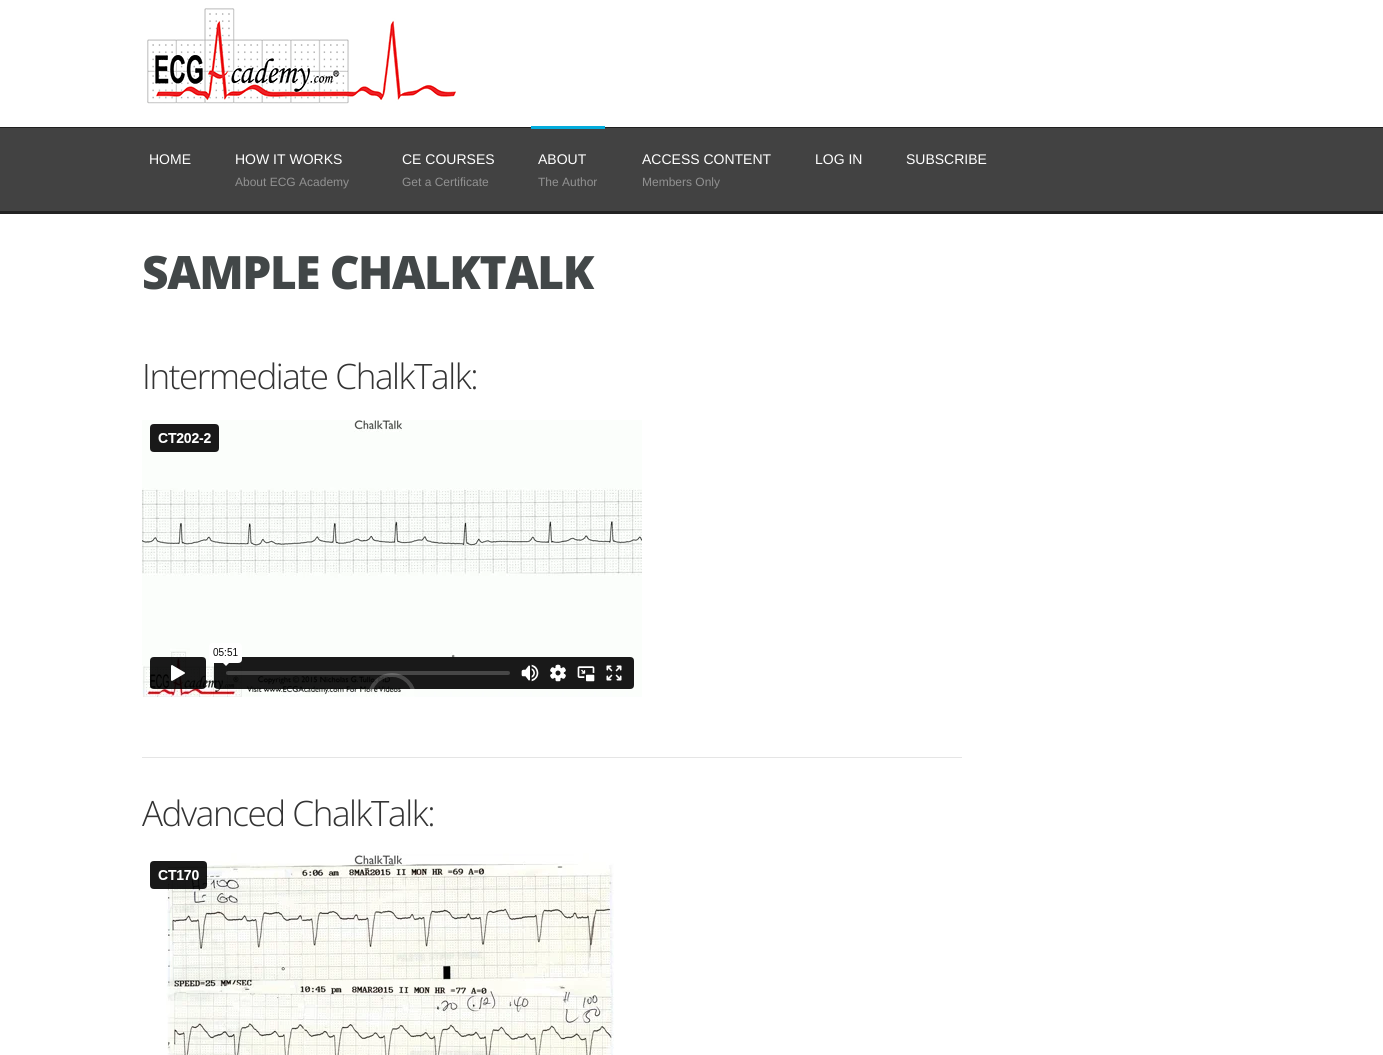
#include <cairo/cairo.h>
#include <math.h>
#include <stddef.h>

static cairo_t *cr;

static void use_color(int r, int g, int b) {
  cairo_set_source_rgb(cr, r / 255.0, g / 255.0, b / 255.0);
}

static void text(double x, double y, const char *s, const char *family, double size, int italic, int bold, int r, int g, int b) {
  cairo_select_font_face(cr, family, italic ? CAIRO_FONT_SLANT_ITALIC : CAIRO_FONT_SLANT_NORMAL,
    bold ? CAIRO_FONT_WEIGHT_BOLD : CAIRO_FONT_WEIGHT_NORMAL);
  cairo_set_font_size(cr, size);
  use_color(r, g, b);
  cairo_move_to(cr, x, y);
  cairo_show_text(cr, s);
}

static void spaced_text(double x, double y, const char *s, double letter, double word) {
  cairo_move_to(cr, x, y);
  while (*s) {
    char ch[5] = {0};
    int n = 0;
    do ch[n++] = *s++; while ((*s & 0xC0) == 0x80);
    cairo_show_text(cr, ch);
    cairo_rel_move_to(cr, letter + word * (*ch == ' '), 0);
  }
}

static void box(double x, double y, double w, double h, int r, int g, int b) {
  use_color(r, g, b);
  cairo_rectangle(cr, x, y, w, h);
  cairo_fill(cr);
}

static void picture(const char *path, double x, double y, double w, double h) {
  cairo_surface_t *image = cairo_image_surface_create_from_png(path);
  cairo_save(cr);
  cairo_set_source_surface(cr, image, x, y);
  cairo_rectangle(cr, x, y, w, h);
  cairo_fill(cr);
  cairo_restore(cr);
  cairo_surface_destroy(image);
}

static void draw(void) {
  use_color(255, 255, 255);
  cairo_paint(cr);
  picture("img_01.png", 147, 8, 309, 96);
  box(0, 128, 1383, 83, 66, 66, 66);
  box(0, 127, 1383, 1, 32, 32, 32);
  box(0, 211, 1383, 3, 34, 34, 34);
  box(531, 126, 74, 3, 3, 172, 220);
  picture("img_02.png", 142, 420, 500, 277);
  box(142, 757, 820, 1, 229, 229, 229);
  picture("img_03.png", 150, 853, 464, 202);
  text(149, 164, "HOME", "Liberation Sans", 14, 0, 0, 255, 255, 255);
  text(235, 164, "HOW IT WORKS", "Liberation Sans", 14, 0, 0, 255, 255, 255);
  text(235, 186, "About ECG Academy", "Liberation Sans", 12, 0, 0, 145, 145, 145);
  text(402, 164, "CE COURSES", "Liberation Sans", 14, 0, 0, 255, 255, 255);
  text(402, 186, "Get a Certificate", "Liberation Sans", 12, 0, 0, 145, 145, 145);
  text(538, 164, "ABOUT", "Liberation Sans", 14, 0, 0, 255, 255, 255);
  text(538, 186, "The Author", "Liberation Sans", 12, 0, 0, 145, 145, 145);
  text(642, 164, "ACCESS CONTENT", "Liberation Sans", 14, 0, 0, 255, 255, 255);
  text(642, 186, "Members Only", "Liberation Sans", 12, 0, 0, 145, 145, 145);
  text(815, 164, "LOG IN", "Liberation Sans", 14, 0, 0, 255, 255, 255);
  text(906, 164, "SUBSCRIBE", "Liberation Sans", 14, 0, 0, 255, 255, 255);
  cairo_select_font_face(cr, "Open Sans ExtraBold", CAIRO_FONT_SLANT_NORMAL, CAIRO_FONT_WEIGHT_NORMAL);
  cairo_set_font_size(cr, 46);
  use_color(66, 71, 72);
  spaced_text(142, 289, "SAMPLE CHALKTALK", -1.4, 0);
  cairo_select_font_face(cr, "Open Sans Light", CAIRO_FONT_SLANT_NORMAL, CAIRO_FONT_WEIGHT_NORMAL);
  cairo_set_font_size(cr, 35);
  use_color(51, 51, 51);
  spaced_text(142, 389, "Intermediate ChalkTalk:", -1.4, 0);
  spaced_text(142, 826, "Advanced ChalkTalk:", -1.4, 0);
}

int main(void) {
  cairo_surface_t *surface = cairo_image_surface_create(CAIRO_FORMAT_RGB24, 1383, 1055);
  cr = cairo_create(surface);
  cairo_font_options_t *options = cairo_font_options_create();
  cairo_font_options_set_hint_metrics(options, CAIRO_HINT_METRICS_OFF);
  cairo_font_options_set_hint_style(options, CAIRO_HINT_STYLE_NONE);
  cairo_set_font_options(cr, options);
  cairo_set_miter_limit(cr, 4);
  draw();
  cairo_surface_write_to_png(surface, "out.png");
  cairo_font_options_destroy(options);
  cairo_destroy(cr);
  cairo_surface_destroy(surface);
  return 0;
}
